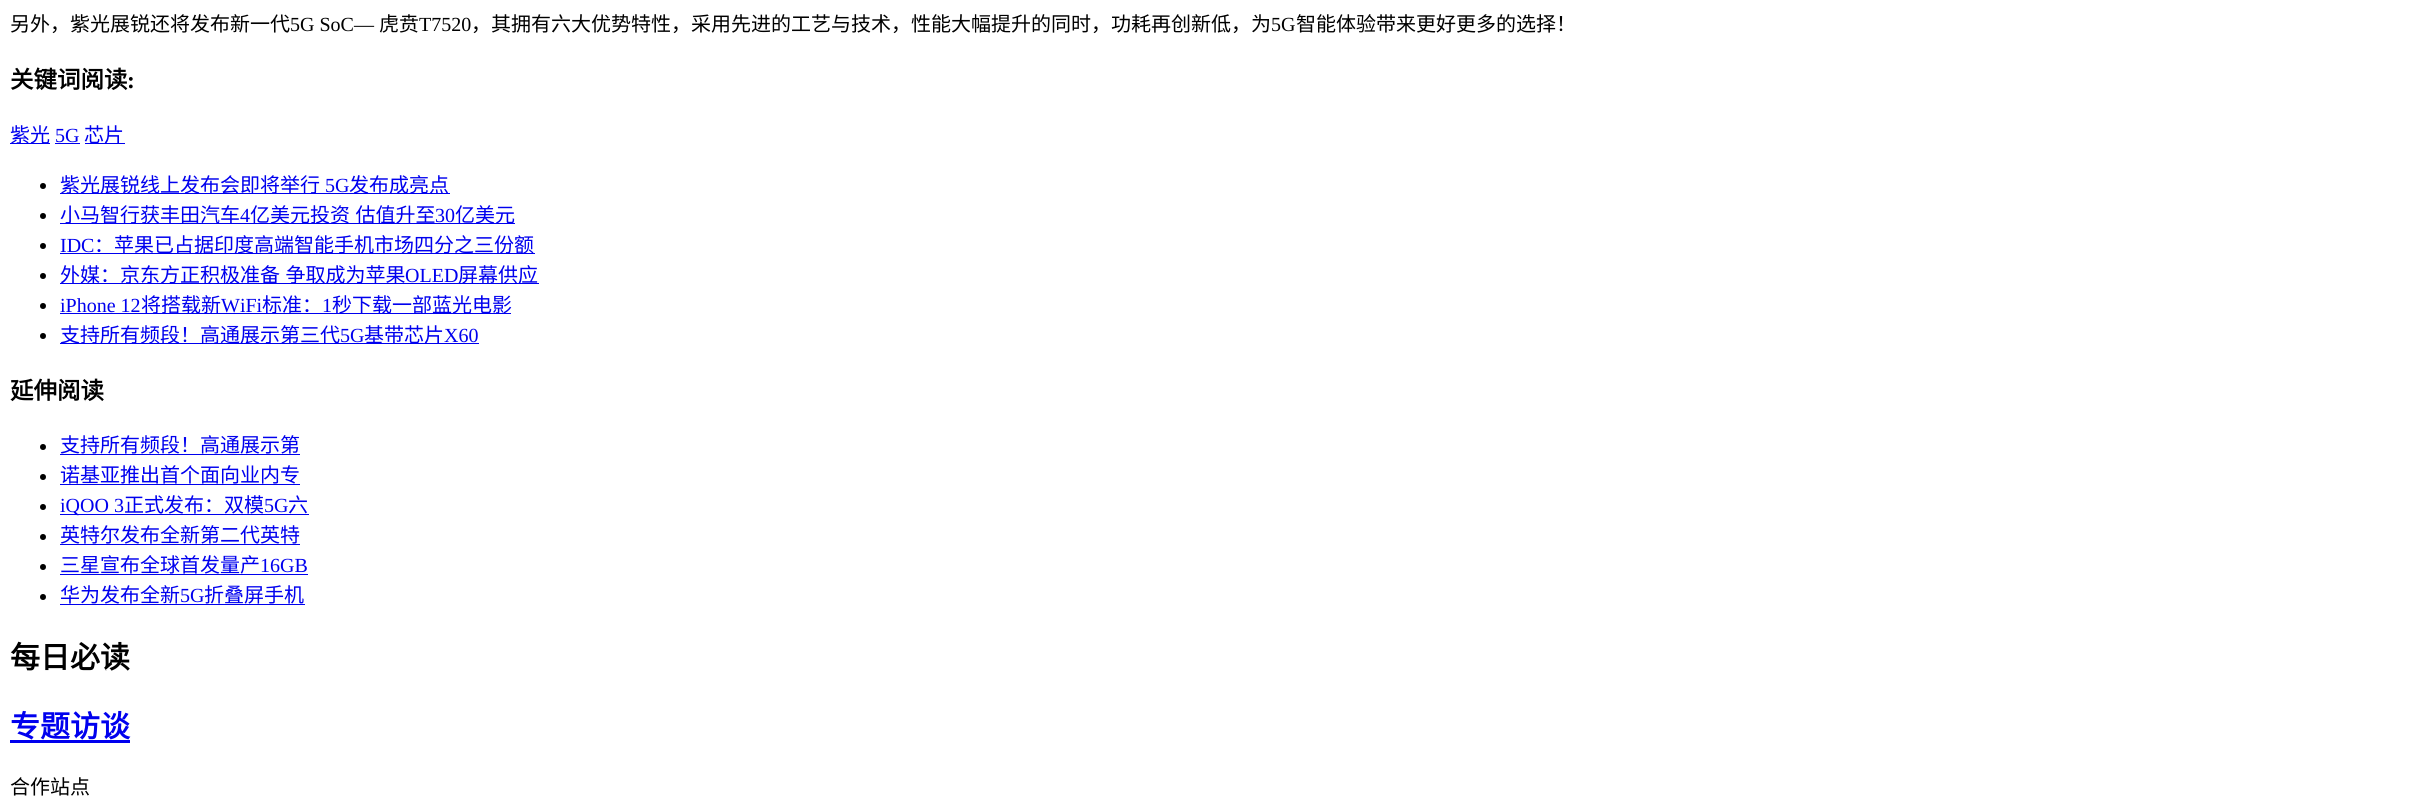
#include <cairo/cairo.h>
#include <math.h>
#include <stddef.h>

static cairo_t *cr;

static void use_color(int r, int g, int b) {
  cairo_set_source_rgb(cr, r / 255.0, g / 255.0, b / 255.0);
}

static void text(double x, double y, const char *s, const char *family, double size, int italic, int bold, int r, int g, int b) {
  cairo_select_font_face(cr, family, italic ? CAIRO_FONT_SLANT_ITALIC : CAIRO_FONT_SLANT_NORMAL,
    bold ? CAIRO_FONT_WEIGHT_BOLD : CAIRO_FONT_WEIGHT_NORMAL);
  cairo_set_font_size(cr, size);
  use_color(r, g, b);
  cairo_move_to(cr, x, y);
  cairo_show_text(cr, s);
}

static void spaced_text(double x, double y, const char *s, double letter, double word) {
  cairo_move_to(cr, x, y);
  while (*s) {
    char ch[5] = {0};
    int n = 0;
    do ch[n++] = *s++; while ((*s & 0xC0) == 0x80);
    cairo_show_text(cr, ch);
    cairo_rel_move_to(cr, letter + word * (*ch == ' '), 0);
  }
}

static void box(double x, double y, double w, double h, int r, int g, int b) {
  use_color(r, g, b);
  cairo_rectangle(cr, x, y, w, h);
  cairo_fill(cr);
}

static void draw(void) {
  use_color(255, 255, 255);
  cairo_paint(cr);
  box(10, 143, 40, 1, 0, 0, 238);
  box(55, 143, 25, 1, 0, 0, 238);
  box(85, 143, 40, 1, 0, 0, 238);
  use_color(0, 0, 0);
  cairo_arc(cr, 43, 186, 3, 0, 2 * M_PI);
  cairo_fill(cr);
  box(60, 193, 390, 1, 0, 0, 238);
  use_color(0, 0, 0);
  cairo_arc(cr, 43, 216, 3, 0, 2 * M_PI);
  cairo_fill(cr);
  box(60, 223, 455, 1, 0, 0, 238);
  use_color(0, 0, 0);
  cairo_arc(cr, 43, 246, 3, 0, 2 * M_PI);
  cairo_fill(cr);
  box(60, 253, 475, 1, 0, 0, 238);
  use_color(0, 0, 0);
  cairo_arc(cr, 43, 276, 3, 0, 2 * M_PI);
  cairo_fill(cr);
  box(60, 283, 479, 1, 0, 0, 238);
  use_color(0, 0, 0);
  cairo_arc(cr, 43, 306, 3, 0, 2 * M_PI);
  cairo_fill(cr);
  box(60, 313, 451, 1, 0, 0, 238);
  use_color(0, 0, 0);
  cairo_arc(cr, 43, 336, 3, 0, 2 * M_PI);
  cairo_fill(cr);
  box(60, 343, 419, 1, 0, 0, 238);
  use_color(0, 0, 0);
  cairo_arc(cr, 43, 447, 3, 0, 2 * M_PI);
  cairo_fill(cr);
  box(60, 454, 240, 1, 0, 0, 238);
  use_color(0, 0, 0);
  cairo_arc(cr, 43, 477, 3, 0, 2 * M_PI);
  cairo_fill(cr);
  box(60, 484, 240, 1, 0, 0, 238);
  use_color(0, 0, 0);
  cairo_arc(cr, 43, 507, 3, 0, 2 * M_PI);
  cairo_fill(cr);
  box(60, 514, 249, 1, 0, 0, 238);
  use_color(0, 0, 0);
  cairo_arc(cr, 43, 537, 3, 0, 2 * M_PI);
  cairo_fill(cr);
  box(60, 544, 240, 1, 0, 0, 238);
  use_color(0, 0, 0);
  cairo_arc(cr, 43, 567, 3, 0, 2 * M_PI);
  cairo_fill(cr);
  box(60, 574, 248, 1, 0, 0, 238);
  use_color(0, 0, 0);
  cairo_arc(cr, 43, 597, 3, 0, 2 * M_PI);
  cairo_fill(cr);
  box(60, 604, 245, 1, 0, 0, 238);
  box(10, 740, 120, 3, 0, 0, 238);
  text(10, 31, "另外，紫光展锐还将发布新一代", "Noto Sans CJK SC", 20, 0, 0, 0, 0, 0);
  text(290, 31, "5G SoC—", "Liberation Serif", 20, 0, 0, 0, 0, 0);
  text(379, 31, "虎贲", "Noto Sans CJK SC", 20, 0, 0, 0, 0, 0);
  text(419, 31, "T7520", "Liberation Serif", 20, 0, 0, 0, 0, 0);
  text(471, 31, "，其拥有六大优势特性，采用先进的工艺与技术，性能大幅提升的同时，功耗再创新低，为", "Noto Sans CJK SC", 20, 0, 0, 0, 0, 0);
  text(1271, 31, "5G", "Liberation Serif", 20, 0, 0, 0, 0, 0);
  text(1296, 31, "智能体验带来更好更多的选择！", "Noto Sans CJK SC", 20, 0, 0, 0, 0, 0);
  text(10, 88, "关键词阅读", "Noto Sans CJK SC", 23.5, 0, 1, 0, 0, 0);
  text(127, 88, ":", "Liberation Serif", 23.5, 0, 1, 0, 0, 0);
  text(10, 142, "紫光", "Noto Sans CJK SC", 20, 0, 0, 0, 0, 238);
  text(55, 142, "5G", "Liberation Serif", 20, 0, 0, 0, 0, 238);
  text(84, 142, "芯片", "Noto Sans CJK SC", 20, 0, 0, 0, 0, 238);
  text(60, 192, "紫光展锐线上发布会即将举行", "Noto Sans CJK SC", 20, 0, 0, 0, 0, 238);
  text(325, 192, "5G", "Liberation Serif", 20, 0, 0, 0, 0, 238);
  text(349, 192, "发布成亮点", "Noto Sans CJK SC", 20, 0, 0, 0, 0, 238);
  text(60, 222, "小马智行获丰田汽车", "Noto Sans CJK SC", 20, 0, 0, 0, 0, 238);
  text(240, 222, "4", "Liberation Serif", 20, 0, 0, 0, 0, 238);
  cairo_select_font_face(cr, "Noto Sans CJK SC", CAIRO_FONT_SLANT_NORMAL, CAIRO_FONT_WEIGHT_NORMAL);
  spaced_text(250, 222, "亿美元投资 估值升至", 0, 1);
  text(435, 222, "30", "Liberation Serif", 20, 0, 0, 0, 0, 238);
  text(455, 222, "亿美元", "Noto Sans CJK SC", 20, 0, 0, 0, 0, 238);
  text(60, 252, "IDC", "Liberation Serif", 20, 0, 0, 0, 0, 238);
  text(94, 252, "：苹果已占据印度高端智能手机市场四分之三份额", "Noto Sans CJK SC", 20, 0, 0, 0, 0, 238);
  spaced_text(60, 282, "外媒：京东方正积极准备 争取成为苹果", 0, 1);
  text(405, 282, "OLED", "Liberation Serif", 20, 0, 0, 0, 0, 238);
  text(458, 282, "屏幕供应", "Noto Sans CJK SC", 20, 0, 0, 0, 0, 238);
  text(60, 312, "iPhone 12", "Liberation Serif", 20, 0, 0, 0, 0, 238);
  text(141, 312, "将搭载新", "Noto Sans CJK SC", 20, 0, 0, 0, 0, 238);
  text(221, 312, "WiFi", "Liberation Serif", 20, 0, 0, 0, 0, 238);
  text(262, 312, "标准：", "Noto Sans CJK SC", 20, 0, 0, 0, 0, 238);
  text(322, 312, "1", "Liberation Serif", 20, 0, 0, 0, 0, 238);
  text(332, 312, "秒下载一部蓝光电影", "Noto Sans CJK SC", 20, 0, 0, 0, 0, 238);
  text(60, 342, "支持所有频段！高通展示第三代", "Noto Sans CJK SC", 20, 0, 0, 0, 0, 238);
  text(340, 342, "5G", "Liberation Serif", 20, 0, 0, 0, 0, 238);
  text(364, 342, "基带芯片", "Noto Sans CJK SC", 20, 0, 0, 0, 0, 238);
  text(444, 342, "X60", "Liberation Serif", 20, 0, 0, 0, 0, 238);
  text(10, 399, "延伸阅读", "Noto Sans CJK SC", 23.5, 0, 1, 0, 0, 0);
  text(60, 452, "支持所有频段！高通展示第", "Noto Sans CJK SC", 20, 0, 0, 0, 0, 238);
  text(60, 482, "诺基亚推出首个面向业内专", "Noto Sans CJK SC", 20, 0, 0, 0, 0, 238);
  text(60, 512, "iQOO 3", "Liberation Serif", 20, 0, 0, 0, 0, 238);
  text(124, 512, "正式发布：双模", "Noto Sans CJK SC", 20, 0, 0, 0, 0, 238);
  text(264, 512, "5G", "Liberation Serif", 20, 0, 0, 0, 0, 238);
  text(288, 512, "六", "Noto Sans CJK SC", 20, 0, 0, 0, 0, 238);
  text(60, 542, "英特尔发布全新第二代英特", "Noto Sans CJK SC", 20, 0, 0, 0, 0, 238);
  text(60, 572, "三星宣布全球首发量产", "Noto Sans CJK SC", 20, 0, 0, 0, 0, 238);
  text(260, 572, "16GB", "Liberation Serif", 20, 0, 0, 0, 0, 238);
  text(60, 602, "华为发布全新", "Noto Sans CJK SC", 20, 0, 0, 0, 0, 238);
  text(180, 602, "5G", "Liberation Serif", 20, 0, 0, 0, 0, 238);
  text(204, 602, "折叠屏手机", "Noto Sans CJK SC", 20, 0, 0, 0, 0, 238);
  text(10, 668, "每日必读", "Noto Sans CJK SC", 30, 0, 1, 0, 0, 0);
  text(10, 737, "专题访谈", "Noto Sans CJK SC", 30, 0, 1, 0, 0, 238);
  text(10, 794, "合作站点", "Noto Sans CJK SC", 20, 0, 0, 0, 0, 0);
}

int main(void) {
  cairo_surface_t *surface = cairo_image_surface_create(CAIRO_FORMAT_RGB24, 2418, 810);
  cr = cairo_create(surface);
  cairo_font_options_t *options = cairo_font_options_create();
  cairo_font_options_set_hint_metrics(options, CAIRO_HINT_METRICS_OFF);
  cairo_font_options_set_hint_style(options, CAIRO_HINT_STYLE_NONE);
  cairo_set_font_options(cr, options);
  cairo_set_miter_limit(cr, 4);
  draw();
  cairo_surface_write_to_png(surface, "out.png");
  cairo_font_options_destroy(options);
  cairo_destroy(cr);
  cairo_surface_destroy(surface);
  return 0;
}
